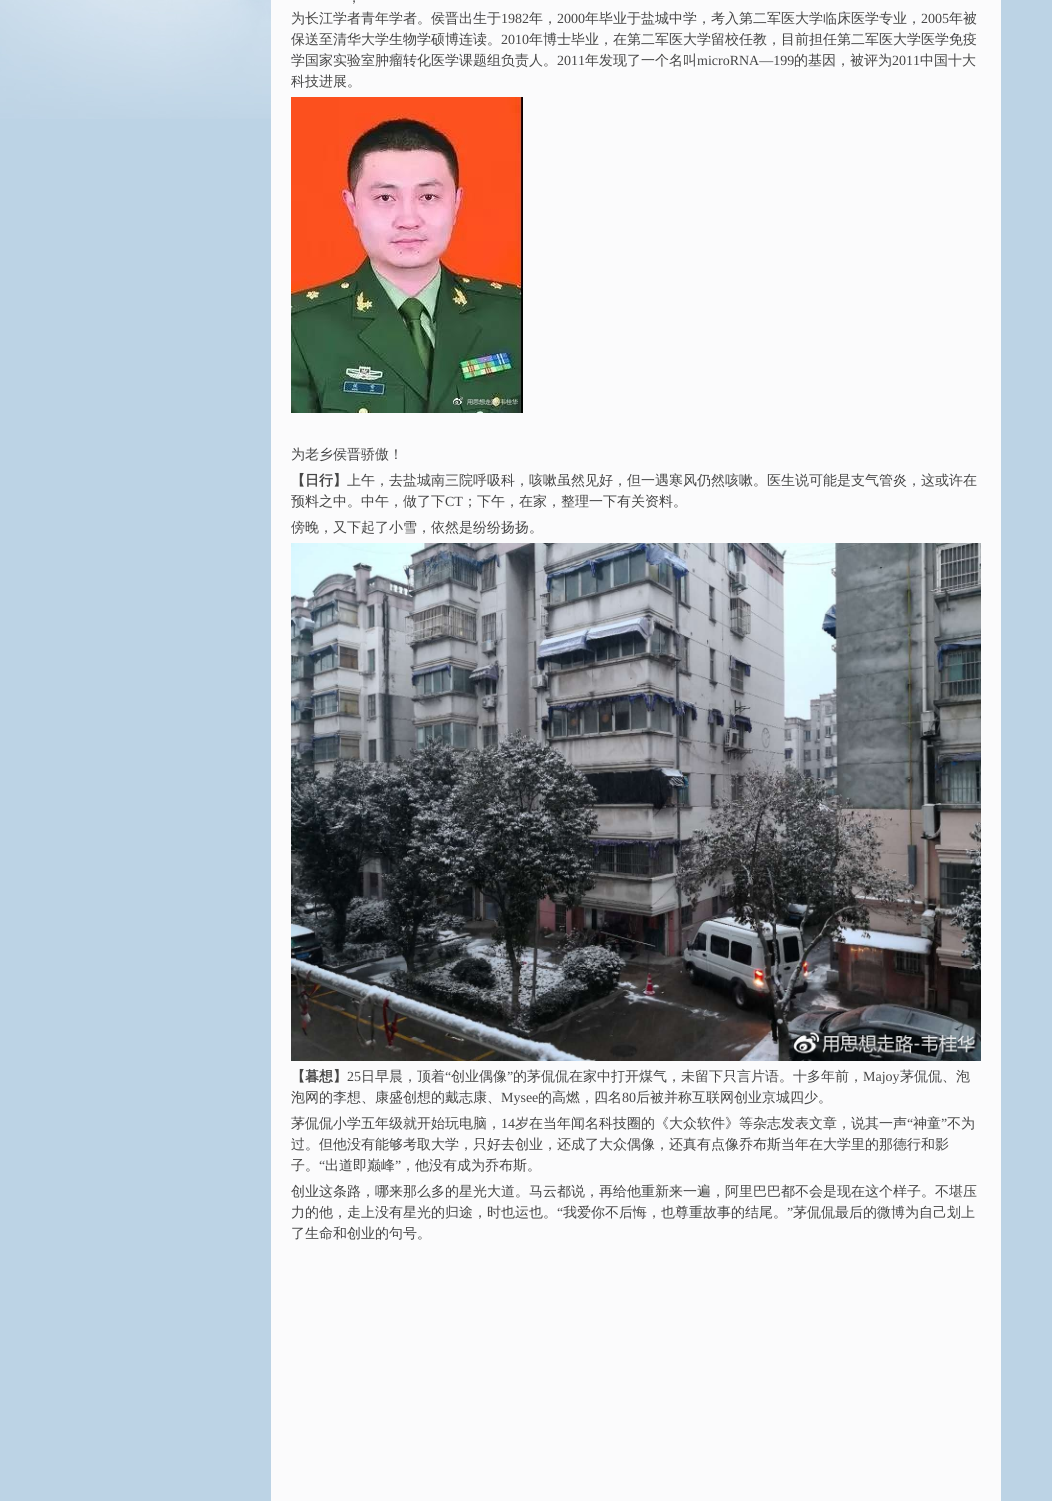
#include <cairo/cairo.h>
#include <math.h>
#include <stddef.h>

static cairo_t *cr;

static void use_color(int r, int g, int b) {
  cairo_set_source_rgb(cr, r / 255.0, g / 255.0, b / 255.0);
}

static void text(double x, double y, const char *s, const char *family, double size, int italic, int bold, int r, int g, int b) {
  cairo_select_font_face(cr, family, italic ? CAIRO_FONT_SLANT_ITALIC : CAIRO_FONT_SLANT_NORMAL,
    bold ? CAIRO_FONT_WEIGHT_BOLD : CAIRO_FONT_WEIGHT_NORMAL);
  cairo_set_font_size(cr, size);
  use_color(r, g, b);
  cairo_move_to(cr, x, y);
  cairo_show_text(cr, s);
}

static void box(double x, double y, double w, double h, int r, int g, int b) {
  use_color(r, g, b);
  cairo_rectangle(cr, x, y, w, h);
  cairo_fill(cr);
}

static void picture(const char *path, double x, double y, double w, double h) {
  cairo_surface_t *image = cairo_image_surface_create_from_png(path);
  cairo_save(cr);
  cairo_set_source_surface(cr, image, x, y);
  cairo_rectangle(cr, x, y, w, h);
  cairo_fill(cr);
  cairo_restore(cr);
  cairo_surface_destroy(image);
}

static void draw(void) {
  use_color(188, 211, 229);
  cairo_paint(cr);
  picture("img_01.png", 0, 0, 271, 119);
  box(271, 0, 730, 1501, 251, 251, 252);
  picture("img_02.png", 291, 97, 232, 316);
  picture("img_03.png", 291, 543, 690, 518);
  text(347, 2, "，", "WenQuanYi Zen Hei Medium", 14, 0, 0, 70, 70, 70);
  text(291, 23, "为长江学者青年学者。侯晋出生于", "WenQuanYi Zen Hei Medium", 14, 0, 0, 70, 70, 70);
  text(501, 23, "1982", "Liberation Serif", 14, 0, 0, 70, 70, 70);
  text(529, 23, "年，", "WenQuanYi Zen Hei Medium", 14, 0, 0, 70, 70, 70);
  text(557, 23, "2000", "Liberation Serif", 14, 0, 0, 70, 70, 70);
  text(585, 23, "年毕业于盐城中学，考入第二军医大学临床医学专业，", "WenQuanYi Zen Hei Medium", 14, 0, 0, 70, 70, 70);
  text(921, 23, "2005", "Liberation Serif", 14, 0, 0, 70, 70, 70);
  text(949, 23, "年被", "WenQuanYi Zen Hei Medium", 14, 0, 0, 70, 70, 70);
  text(291, 44, "保送至清华大学生物学硕博连读。", "WenQuanYi Zen Hei Medium", 14, 0, 0, 70, 70, 70);
  text(501, 44, "2010", "Liberation Serif", 14, 0, 0, 70, 70, 70);
  text(529, 44, "年博士毕业，在第二军医大学留校任教，目前担任第二军医大学医学免疫", "WenQuanYi Zen Hei Medium", 14, 0, 0, 70, 70, 70);
  text(291, 65, "学国家实验室肿瘤转化医学课题组负责人。", "WenQuanYi Zen Hei Medium", 14, 0, 0, 70, 70, 70);
  text(557, 65, "2011", "Liberation Serif", 14, 0, 0, 70, 70, 70);
  text(585, 65, "年发现了一个名叫", "WenQuanYi Zen Hei Medium", 14, 0, 0, 70, 70, 70);
  text(697, 65, "microRNA—199", "Liberation Serif", 14, 0, 0, 70, 70, 70);
  text(794, 65, "的基因，被评为", "WenQuanYi Zen Hei Medium", 14, 0, 0, 70, 70, 70);
  text(892, 65, "2011", "Liberation Serif", 14, 0, 0, 70, 70, 70);
  text(920, 65, "中国十大", "WenQuanYi Zen Hei Medium", 14, 0, 0, 70, 70, 70);
  text(291, 86, "科技进展。", "WenQuanYi Zen Hei Medium", 14, 0, 0, 70, 70, 70);
  text(291, 459, "为老乡侯晋骄傲！", "WenQuanYi Zen Hei Medium", 14, 0, 0, 70, 70, 70);
  text(291, 485, "【日行】", "WenQuanYi Zen Hei", 14, 0, 1, 70, 70, 70);
  text(347, 485, "上午，去盐城南三院呼吸科，咳嗽虽然见好，但一遇寒风仍然咳嗽。医生说可能是支气管炎，这或许在", "WenQuanYi Zen Hei Medium", 14, 0, 0, 70, 70, 70);
  text(291, 506, "预料之中。中午，做了下", "WenQuanYi Zen Hei Medium", 14, 0, 0, 70, 70, 70);
  text(445, 506, "CT", "Liberation Serif", 14, 0, 0, 70, 70, 70);
  text(463, 506, "；下午，在家，整理一下有关资料。", "WenQuanYi Zen Hei Medium", 14, 0, 0, 70, 70, 70);
  text(291, 532, "傍晚，又下起了小雪，依然是纷纷扬扬。", "WenQuanYi Zen Hei Medium", 14, 0, 0, 70, 70, 70);
  text(291, 1081, "【暮想】", "WenQuanYi Zen Hei", 14, 0, 1, 70, 70, 70);
  text(347, 1081, "25", "Liberation Serif", 14, 0, 0, 70, 70, 70);
  text(361, 1081, "日早晨，顶着", "WenQuanYi Zen Hei Medium", 14, 0, 0, 70, 70, 70);
  text(445, 1081, "“", "Liberation Serif", 14, 0, 0, 70, 70, 70);
  text(451, 1081, "创业偶像", "WenQuanYi Zen Hei Medium", 14, 0, 0, 70, 70, 70);
  text(507, 1081, "”", "Liberation Serif", 14, 0, 0, 70, 70, 70);
  text(513, 1081, "的茅侃侃在家中打开煤气，未留下只言片语。十多年前，", "WenQuanYi Zen Hei Medium", 14, 0, 0, 70, 70, 70);
  text(863, 1081, "Majoy", "Liberation Serif", 14, 0, 0, 70, 70, 70);
  text(900, 1081, "茅侃侃、泡", "WenQuanYi Zen Hei Medium", 14, 0, 0, 70, 70, 70);
  text(291, 1102, "泡网的李想、康盛创想的戴志康、", "WenQuanYi Zen Hei Medium", 14, 0, 0, 70, 70, 70);
  text(501, 1102, "Mysee", "Liberation Serif", 14, 0, 0, 70, 70, 70);
  text(538, 1102, "的高燃，四名", "WenQuanYi Zen Hei Medium", 14, 0, 0, 70, 70, 70);
  text(622, 1102, "80", "Liberation Serif", 14, 0, 0, 70, 70, 70);
  text(636, 1102, "后被并称互联网创业京城四少。", "WenQuanYi Zen Hei Medium", 14, 0, 0, 70, 70, 70);
  text(291, 1128, "茅侃侃小学五年级就开始玩电脑，", "WenQuanYi Zen Hei Medium", 14, 0, 0, 70, 70, 70);
  text(501, 1128, "14", "Liberation Serif", 14, 0, 0, 70, 70, 70);
  text(515, 1128, "岁在当年闻名科技圈的《大众软件》等杂志发表文章，说其一声", "WenQuanYi Zen Hei Medium", 14, 0, 0, 70, 70, 70);
  text(907, 1128, "“", "Liberation Serif", 14, 0, 0, 70, 70, 70);
  text(913, 1128, "神童", "WenQuanYi Zen Hei Medium", 14, 0, 0, 70, 70, 70);
  text(941, 1128, "”", "Liberation Serif", 14, 0, 0, 70, 70, 70);
  text(947, 1128, "不为", "WenQuanYi Zen Hei Medium", 14, 0, 0, 70, 70, 70);
  text(291, 1149, "过。但他没有能够考取大学，只好去创业，还成了大众偶像，还真有点像乔布斯当年在大学里的那德行和影", "WenQuanYi Zen Hei Medium", 14, 0, 0, 70, 70, 70);
  text(291, 1170, "子。", "WenQuanYi Zen Hei Medium", 14, 0, 0, 70, 70, 70);
  text(319, 1170, "“", "Liberation Serif", 14, 0, 0, 70, 70, 70);
  text(325, 1170, "出道即巅峰", "WenQuanYi Zen Hei Medium", 14, 0, 0, 70, 70, 70);
  text(395, 1170, "”", "Liberation Serif", 14, 0, 0, 70, 70, 70);
  text(401, 1170, "，他没有成为乔布斯。", "WenQuanYi Zen Hei Medium", 14, 0, 0, 70, 70, 70);
  text(291, 1196, "创业这条路，哪来那么多的星光大道。马云都说，再给他重新来一遍，阿里巴巴都不会是现在这个样子。不堪压", "WenQuanYi Zen Hei Medium", 14, 0, 0, 70, 70, 70);
  text(291, 1217, "力的他，走上没有星光的归途，时也运也。", "WenQuanYi Zen Hei Medium", 14, 0, 0, 70, 70, 70);
  text(557, 1217, "“", "Liberation Serif", 14, 0, 0, 70, 70, 70);
  text(563, 1217, "我爱你不后悔，也尊重故事的结尾。", "WenQuanYi Zen Hei Medium", 14, 0, 0, 70, 70, 70);
  text(787, 1217, "”", "Liberation Serif", 14, 0, 0, 70, 70, 70);
  text(793, 1217, "茅侃侃最后的微博为自己划上", "WenQuanYi Zen Hei Medium", 14, 0, 0, 70, 70, 70);
  text(291, 1238, "了生命和创业的句号。", "WenQuanYi Zen Hei Medium", 14, 0, 0, 70, 70, 70);
}

int main(void) {
  cairo_surface_t *surface = cairo_image_surface_create(CAIRO_FORMAT_RGB24, 1052, 1501);
  cr = cairo_create(surface);
  cairo_font_options_t *options = cairo_font_options_create();
  cairo_font_options_set_hint_metrics(options, CAIRO_HINT_METRICS_OFF);
  cairo_font_options_set_hint_style(options, CAIRO_HINT_STYLE_NONE);
  cairo_set_font_options(cr, options);
  cairo_set_miter_limit(cr, 4);
  draw();
  cairo_surface_write_to_png(surface, "out.png");
  cairo_font_options_destroy(options);
  cairo_destroy(cr);
  cairo_surface_destroy(surface);
  return 0;
}
